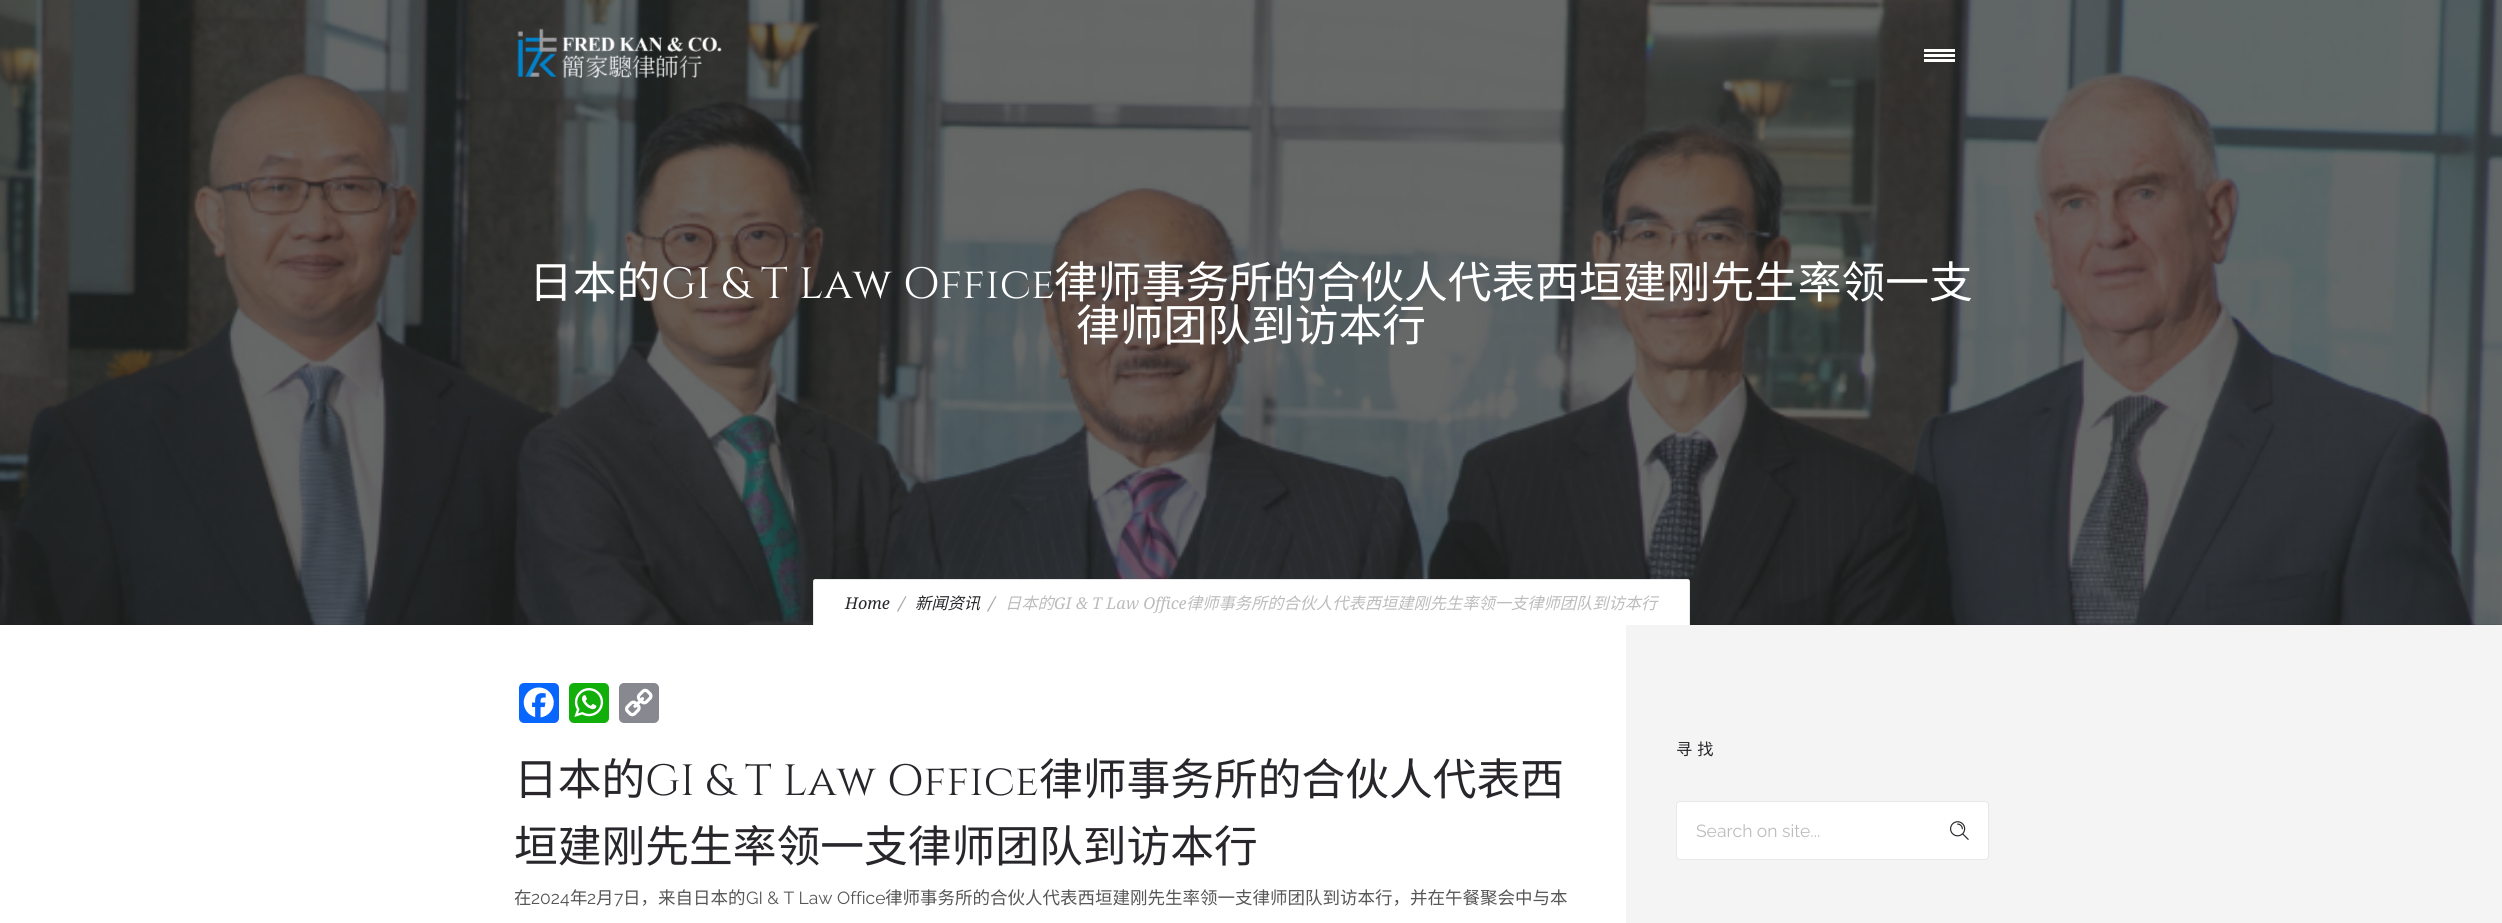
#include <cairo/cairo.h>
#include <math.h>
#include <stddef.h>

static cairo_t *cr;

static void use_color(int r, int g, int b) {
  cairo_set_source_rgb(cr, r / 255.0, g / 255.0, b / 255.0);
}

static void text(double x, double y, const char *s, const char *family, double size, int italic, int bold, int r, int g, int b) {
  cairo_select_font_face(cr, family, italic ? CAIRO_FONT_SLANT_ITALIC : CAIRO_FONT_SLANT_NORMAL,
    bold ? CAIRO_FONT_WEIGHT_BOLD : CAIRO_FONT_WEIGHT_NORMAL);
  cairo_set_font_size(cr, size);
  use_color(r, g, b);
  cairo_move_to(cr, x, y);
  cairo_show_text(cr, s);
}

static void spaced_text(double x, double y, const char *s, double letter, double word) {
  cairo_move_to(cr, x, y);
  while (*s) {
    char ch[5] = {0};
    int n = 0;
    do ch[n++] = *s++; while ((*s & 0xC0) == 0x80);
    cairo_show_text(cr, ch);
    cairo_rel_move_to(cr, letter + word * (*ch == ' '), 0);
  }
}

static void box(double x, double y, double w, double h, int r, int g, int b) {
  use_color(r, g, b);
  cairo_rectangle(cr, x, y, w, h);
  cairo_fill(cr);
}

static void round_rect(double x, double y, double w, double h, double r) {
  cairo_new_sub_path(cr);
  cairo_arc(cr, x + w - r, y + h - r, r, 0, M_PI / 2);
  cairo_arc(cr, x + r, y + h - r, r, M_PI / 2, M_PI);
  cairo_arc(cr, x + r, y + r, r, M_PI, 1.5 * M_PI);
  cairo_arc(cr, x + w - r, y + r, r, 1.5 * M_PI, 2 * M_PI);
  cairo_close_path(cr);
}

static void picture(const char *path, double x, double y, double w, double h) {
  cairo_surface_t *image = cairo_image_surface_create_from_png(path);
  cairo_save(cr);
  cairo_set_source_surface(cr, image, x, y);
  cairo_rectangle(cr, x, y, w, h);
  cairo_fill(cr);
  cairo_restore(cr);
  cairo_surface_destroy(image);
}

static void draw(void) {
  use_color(255, 255, 255);
  cairo_paint(cr);
  picture("img_02.png", 0, 0, 2502, 625);
  picture("img_01.png", 517, 28, 205, 50);
  box(1924, 49, 31, 3, 255, 255, 255);
  box(1924, 54, 31, 3, 255, 255, 255);
  box(1924, 59, 31, 3, 255, 255, 255);
  cairo_set_source_rgba(cr, 0.106, 0.106, 0.106, 0.1);
  cairo_rectangle(cr, 314, 624, 2188, 1);
  cairo_fill(cr);
  use_color(255, 255, 255);
  cairo_new_path(cr);
  cairo_move_to(cr, 815.5, 579);
  cairo_line_to(cr, 1687.5, 579);
  cairo_curve_to(cr, 1689, 579, 1690, 580, 1690, 581.5);
  cairo_line_to(cr, 1690, 625);
  cairo_line_to(cr, 813, 625);
  cairo_line_to(cr, 813, 581.5);
  cairo_curve_to(cr, 813, 580, 814, 579, 815.5, 579);
  cairo_close_path(cr);
  cairo_fill(cr);
  cairo_set_source_rgba(cr, 0.106, 0.106, 0.106, 0.1);
  cairo_rectangle(cr, 814, 579, 875, 1);
  cairo_fill(cr);
  cairo_rectangle(cr, 1689, 580, 1, 45);
  cairo_fill(cr);
  cairo_rectangle(cr, 813, 580, 1, 45);
  cairo_fill(cr);
  use_color(169, 168, 170);
  cairo_new_path(cr);
  cairo_move_to(cr, 905.5, 596);
  cairo_line_to(cr, 906.5, 596.5);
  cairo_line_to(cr, 898, 612);
  cairo_line_to(cr, 897, 611);
  cairo_close_path(cr);
  cairo_fill(cr);
  cairo_new_path(cr);
  cairo_move_to(cr, 995.5, 596);
  cairo_line_to(cr, 996.5, 596.5);
  cairo_line_to(cr, 988, 612);
  cairo_line_to(cr, 987, 611);
  cairo_close_path(cr);
  cairo_fill(cr);
  use_color(8, 102, 255);
  round_rect(519, 683, 40, 40, 5);
  cairo_fill(cr);
  picture("img_03.png", 523, 687, 31, 31);
  use_color(18, 175, 10);
  round_rect(569, 683, 40, 40, 5);
  cairo_fill(cr);
  picture("img_04.png", 574, 688, 30, 29);
  use_color(136, 137, 144);
  round_rect(619, 683, 40, 40, 5);
  cairo_fill(cr);
  picture("img_05.png", 625, 688, 28, 29);
  box(1626, 625, 876, 298, 244, 244, 244);
  use_color(255, 255, 255);
  round_rect(1676.5, 801.5, 312, 58, 3.5);
  cairo_fill_preserve(cr);
  use_color(232, 232, 232);
  cairo_set_line_width(cr, 1);
  cairo_stroke(cr);
  picture("img_06.png", 1950, 821, 19, 19);
  text(529, 298, "日本的", "Noto Sans CJK SC", 43.75, 0, 0, 255, 255, 255);
  text(661, 298, "GI & T Law Office", "Cinzel", 43.75, 0, 0, 255, 255, 255);
  text(1054, 298, "律师事务所的合伙人代表西垣建刚先生率领一支", "Noto Sans CJK SC", 43.75, 0, 0, 255, 255, 255);
  text(1076, 341, "律师团队到访本行", "Noto Sans CJK SC", 43.75, 0, 0, 255, 255, 255);
  text(845, 609, "Home", "Droid Serif", 16.25, 1, 0, 40, 38, 43);
  text(915, 609, "新闻资讯", "Noto Sans CJK SC", 16.25, 1, 0, 40, 38, 43);
  text(1005, 609, "日本的", "Noto Sans CJK SC", 16.25, 1, 0, 188, 188, 188);
  text(1054, 609, "GI & T Law Office", "Droid Serif", 16.25, 1, 0, 188, 188, 188);
  text(1186, 609, "律师事务所的合伙人代表西垣建刚先生率领一支律师团队到访本行", "Noto Sans CJK SC", 16.25, 1, 0, 188, 188, 188);
  text(514, 795, "日本的", "Noto Sans CJK SC", 43.75, 0, 0, 40, 38, 43);
  text(645, 795, "GI & T Law Office", "Cinzel", 43.75, 0, 0, 40, 38, 43);
  text(1039, 795, "律师事务所的合伙人代表西", "Noto Sans CJK SC", 43.75, 0, 0, 40, 38, 43);
  text(514, 862, "垣建刚先生率领一支律师团队到访本行", "Noto Sans CJK SC", 43.75, 0, 0, 40, 38, 43);
  text(514, 904, "在", "Noto Sans CJK SC", 17.5, 0, 0, 86, 86, 86);
  text(531, 904, "2024", "Raleway", 17.5, 0, 0, 86, 86, 86);
  text(570, 904, "年", "Noto Sans CJK SC", 17.5, 0, 0, 86, 86, 86);
  text(587, 904, "2", "Raleway", 17.5, 0, 0, 86, 86, 86);
  text(596, 904, "月", "Noto Sans CJK SC", 17.5, 0, 0, 86, 86, 86);
  text(614, 904, "7", "Raleway", 17.5, 0, 0, 86, 86, 86);
  text(623, 904, "日，来自日本的", "Noto Sans CJK SC", 17.5, 0, 0, 86, 86, 86);
  text(746, 904, "GI & T Law Office", "Raleway", 17.5, 0, 0, 86, 86, 86);
  text(885, 904, "律师事务所的合伙人代表西垣建刚先生率领一支律师团队到访本行，并在午餐聚会中与本", "Noto Sans CJK SC", 17.5, 0, 0, 86, 86, 86);
  cairo_set_font_size(cr, 16.25);
  use_color(40, 38, 43);
  spaced_text(1676, 755, "寻找", 5, 0);
  text(1696, 837, "Search on site...", "Raleway", 17.5, 0, 0, 188, 188, 188);
}

int main(void) {
  cairo_surface_t *surface = cairo_image_surface_create(CAIRO_FORMAT_RGB24, 2502, 923);
  cr = cairo_create(surface);
  cairo_font_options_t *options = cairo_font_options_create();
  cairo_font_options_set_hint_metrics(options, CAIRO_HINT_METRICS_OFF);
  cairo_font_options_set_hint_style(options, CAIRO_HINT_STYLE_NONE);
  cairo_set_font_options(cr, options);
  cairo_set_miter_limit(cr, 4);
  draw();
  cairo_surface_write_to_png(surface, "out.png");
  cairo_font_options_destroy(options);
  cairo_destroy(cr);
  cairo_surface_destroy(surface);
  return 0;
}
